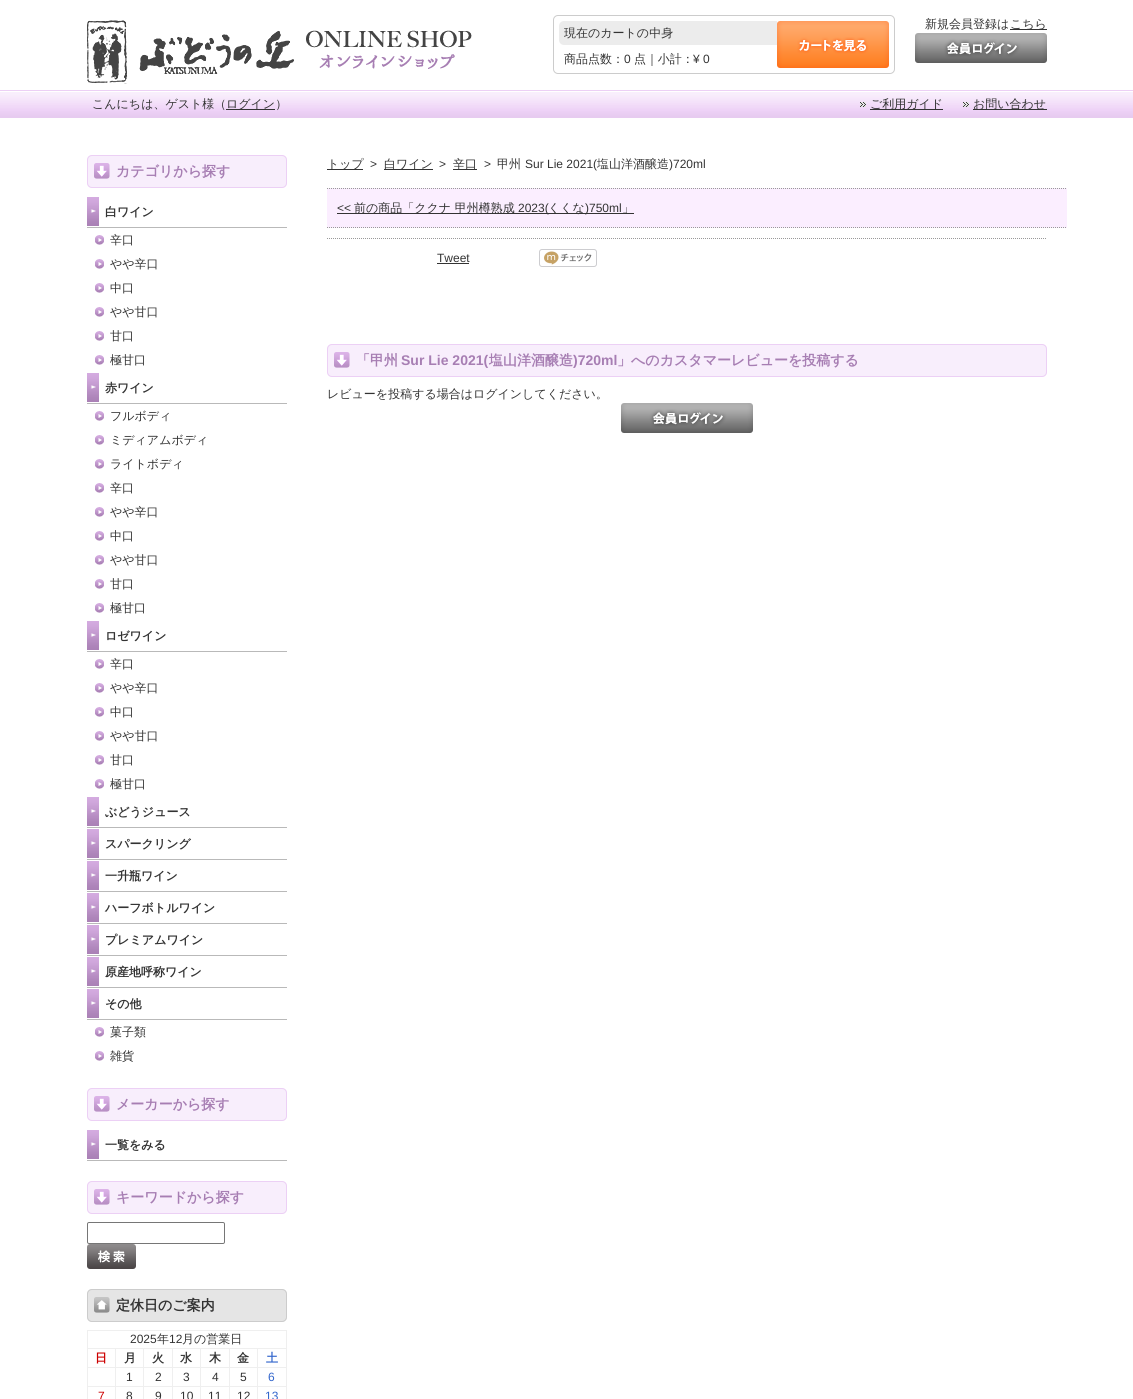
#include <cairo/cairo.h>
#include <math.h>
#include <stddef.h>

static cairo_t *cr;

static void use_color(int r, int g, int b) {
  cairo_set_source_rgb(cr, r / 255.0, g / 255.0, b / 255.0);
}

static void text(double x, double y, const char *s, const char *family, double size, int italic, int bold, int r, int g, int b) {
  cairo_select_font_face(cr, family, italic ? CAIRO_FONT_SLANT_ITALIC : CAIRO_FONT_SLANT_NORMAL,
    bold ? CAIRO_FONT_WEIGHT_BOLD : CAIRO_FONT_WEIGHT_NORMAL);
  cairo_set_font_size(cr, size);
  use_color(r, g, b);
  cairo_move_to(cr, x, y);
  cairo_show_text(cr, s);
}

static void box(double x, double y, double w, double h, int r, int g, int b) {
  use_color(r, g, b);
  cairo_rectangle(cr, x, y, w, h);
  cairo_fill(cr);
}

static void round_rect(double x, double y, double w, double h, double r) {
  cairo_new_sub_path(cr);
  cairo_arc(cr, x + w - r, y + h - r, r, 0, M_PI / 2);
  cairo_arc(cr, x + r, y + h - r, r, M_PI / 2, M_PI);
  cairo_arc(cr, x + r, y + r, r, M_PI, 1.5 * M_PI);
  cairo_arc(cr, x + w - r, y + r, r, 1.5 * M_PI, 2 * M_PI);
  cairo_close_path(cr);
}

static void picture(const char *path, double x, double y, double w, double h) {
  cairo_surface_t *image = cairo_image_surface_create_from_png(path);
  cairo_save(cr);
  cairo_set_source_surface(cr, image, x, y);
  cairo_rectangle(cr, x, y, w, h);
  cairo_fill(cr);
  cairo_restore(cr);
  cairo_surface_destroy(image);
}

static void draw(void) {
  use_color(255, 255, 255);
  cairo_paint(cr);
  picture("img_01.png", 0, 90, 1133, 28);
  picture("img_02.png", 87, 20, 385, 64);
  box(1010, 29, 37, 1, 51, 51, 51);
  picture("img_03.png", 915, 33, 132, 30);
  round_rect(553.5, 15.5, 341, 58, 4.5);
  use_color(204, 204, 204);
  cairo_set_line_width(cr, 1);
  cairo_stroke(cr);
  use_color(236, 236, 236);
  round_rect(559, 21, 330, 24, 5);
  cairo_fill(cr);
  picture("img_04.png", 777, 21, 112, 47);
  box(226, 109, 49, 1, 51, 51, 51);
  picture("img_05.png", 860, 102, 6, 5);
  box(870, 109, 73, 1, 51, 51, 51);
  picture("img_05.png", 963, 102, 6, 5);
  box(973, 109, 74, 1, 51, 51, 51);
  use_color(248, 238, 252);
  round_rect(87, 155, 200, 33, 5);
  cairo_fill(cr);
  picture("img_06.png", 94, 163, 16, 16);
  round_rect(87.5, 155.5, 199, 32, 4.5);
  use_color(236, 208, 245);
  cairo_stroke(cr);
  picture("img_07.png", 87, 197, 12, 29);
  box(87, 227, 200, 1, 185, 185, 185);
  picture("img_08.png", 95, 235, 9, 10);
  picture("img_08.png", 95, 259, 9, 10);
  picture("img_08.png", 95, 283, 9, 10);
  picture("img_08.png", 95, 307, 9, 10);
  picture("img_08.png", 95, 331, 9, 10);
  picture("img_08.png", 95, 355, 9, 10);
  picture("img_07.png", 87, 373, 12, 29);
  box(87, 403, 200, 1, 185, 185, 185);
  picture("img_08.png", 95, 411, 9, 10);
  picture("img_08.png", 95, 435, 9, 10);
  picture("img_08.png", 95, 459, 9, 10);
  picture("img_08.png", 95, 483, 9, 10);
  picture("img_08.png", 95, 507, 9, 10);
  picture("img_08.png", 95, 531, 9, 10);
  picture("img_08.png", 95, 555, 9, 10);
  picture("img_08.png", 95, 579, 9, 10);
  picture("img_08.png", 95, 603, 9, 10);
  picture("img_07.png", 87, 621, 12, 29);
  box(87, 651, 200, 1, 185, 185, 185);
  picture("img_08.png", 95, 659, 9, 10);
  picture("img_08.png", 95, 683, 9, 10);
  picture("img_08.png", 95, 707, 9, 10);
  picture("img_08.png", 95, 731, 9, 10);
  picture("img_08.png", 95, 755, 9, 10);
  picture("img_08.png", 95, 779, 9, 10);
  picture("img_07.png", 87, 797, 12, 29);
  box(87, 827, 200, 1, 185, 185, 185);
  picture("img_07.png", 87, 829, 12, 29);
  box(87, 859, 200, 1, 185, 185, 185);
  picture("img_07.png", 87, 861, 12, 29);
  box(87, 891, 200, 1, 185, 185, 185);
  picture("img_07.png", 87, 893, 12, 29);
  box(87, 923, 200, 1, 185, 185, 185);
  picture("img_07.png", 87, 925, 12, 29);
  box(87, 955, 200, 1, 185, 185, 185);
  picture("img_07.png", 87, 957, 12, 29);
  box(87, 987, 200, 1, 185, 185, 185);
  picture("img_07.png", 87, 989, 12, 29);
  box(87, 1019, 200, 1, 185, 185, 185);
  picture("img_08.png", 95, 1027, 9, 10);
  picture("img_08.png", 95, 1051, 9, 10);
  use_color(248, 238, 252);
  round_rect(87, 1088, 200, 33, 5);
  cairo_fill(cr);
  picture("img_06.png", 94, 1096, 16, 16);
  round_rect(87.5, 1088.5, 199, 32, 4.5);
  use_color(236, 208, 245);
  cairo_stroke(cr);
  picture("img_07.png", 87, 1130, 12, 29);
  box(87, 1160, 200, 1, 185, 185, 185);
  use_color(248, 238, 252);
  round_rect(87, 1181, 200, 33, 5);
  cairo_fill(cr);
  picture("img_06.png", 94, 1189, 16, 16);
  round_rect(87.5, 1181.5, 199, 32, 4.5);
  use_color(236, 208, 245);
  cairo_stroke(cr);
  round_rect(87.5, 1222.5, 137, 21, 1.5);
  use_color(118, 118, 118);
  cairo_stroke(cr);
  picture("img_09.png", 87, 1244, 49, 25);
  use_color(229, 229, 229);
  round_rect(87, 1289, 200, 33, 5);
  cairo_fill(cr);
  picture("img_10.png", 94, 1297, 16, 16);
  round_rect(87.5, 1289.5, 199, 32, 4.5);
  use_color(204, 204, 204);
  cairo_stroke(cr);
  box(87, 1330, 200, 1, 239, 239, 239);
  box(286, 1330, 1, 69, 239, 239, 239);
  box(87, 1330, 1, 69, 239, 239, 239);
  box(257, 1348, 30, 1, 239, 239, 239);
  box(257, 1367, 30, 1, 239, 239, 239);
  box(257, 1386, 30, 1, 239, 239, 239);
  box(257, 1386, 1, 13, 239, 239, 239);
  box(229, 1386, 29, 1, 239, 239, 239);
  box(257, 1367, 1, 20, 239, 239, 239);
  box(229, 1367, 29, 1, 239, 239, 239);
  box(257, 1348, 1, 20, 239, 239, 239);
  box(229, 1348, 29, 1, 239, 239, 239);
  box(229, 1386, 1, 13, 239, 239, 239);
  box(200, 1386, 30, 1, 239, 239, 239);
  box(229, 1367, 1, 20, 239, 239, 239);
  box(200, 1367, 30, 1, 239, 239, 239);
  box(229, 1348, 1, 20, 239, 239, 239);
  box(200, 1348, 30, 1, 239, 239, 239);
  box(200, 1386, 1, 13, 239, 239, 239);
  box(172, 1386, 29, 1, 239, 239, 239);
  box(200, 1367, 1, 20, 239, 239, 239);
  box(172, 1367, 29, 1, 239, 239, 239);
  box(200, 1348, 1, 20, 239, 239, 239);
  box(172, 1348, 29, 1, 239, 239, 239);
  box(172, 1386, 1, 13, 239, 239, 239);
  box(143, 1386, 30, 1, 239, 239, 239);
  box(172, 1367, 1, 20, 239, 239, 239);
  box(143, 1367, 30, 1, 239, 239, 239);
  box(172, 1348, 1, 20, 239, 239, 239);
  box(143, 1348, 30, 1, 239, 239, 239);
  box(143, 1386, 1, 13, 239, 239, 239);
  box(115, 1386, 29, 1, 239, 239, 239);
  box(143, 1367, 1, 20, 239, 239, 239);
  box(115, 1367, 29, 1, 239, 239, 239);
  box(143, 1348, 1, 20, 239, 239, 239);
  box(115, 1348, 29, 1, 239, 239, 239);
  box(115, 1386, 1, 13, 239, 239, 239);
  box(87, 1386, 29, 1, 239, 239, 239);
  box(115, 1367, 1, 20, 239, 239, 239);
  box(87, 1367, 29, 1, 239, 239, 239);
  box(115, 1348, 1, 20, 239, 239, 239);
  box(87, 1348, 29, 1, 239, 239, 239);
  box(327, 169, 36, 1, 51, 51, 51);
  box(384, 169, 49, 1, 51, 51, 51);
  box(453, 169, 24, 1, 51, 51, 51);
  box(327, 188, 740, 40, 251, 238, 255);
  cairo_new_path(cr);
  cairo_move_to(cr, 327, 188.5);
  cairo_line_to(cr, 1067, 188.5);
  use_color(153, 153, 153);
  cairo_set_dash(cr, (double[]){1, 1}, 2, 0);
  cairo_stroke(cr);
  cairo_new_path(cr);
  cairo_move_to(cr, 327, 227.5);
  cairo_line_to(cr, 1067, 227.5);
  cairo_stroke(cr);
  box(337, 213, 297, 1, 51, 51, 51);
  cairo_new_path(cr);
  cairo_move_to(cr, 327, 238.5);
  cairo_line_to(cr, 1047, 238.5);
  use_color(153, 153, 153);
  cairo_stroke(cr);
  box(437, 263, 32, 1, 51, 51, 51);
  picture("img_11.png", 539, 249, 58, 18);
  use_color(248, 238, 252);
  round_rect(327, 344, 720, 33, 5);
  cairo_fill(cr);
  picture("img_06.png", 334, 352, 16, 16);
  round_rect(327.5, 344.5, 719, 32, 4.5);
  use_color(236, 208, 245);
  cairo_set_dash(cr, NULL, 0, 0);
  cairo_stroke(cr);
  picture("img_03.png", 621, 403, 132, 30);
  text(925, 28, "新規会員登録は", "WenQuanYi Zen Hei Medium", 12, 0, 0, 51, 51, 51);
  text(1010, 28, "こちら", "WenQuanYi Zen Hei Medium", 12, 0, 0, 51, 51, 51);
  text(564, 37, "現在のカートの中身", "WenQuanYi Zen Hei Medium", 12, 0, 0, 51, 51, 51);
  text(564, 63, "商品点数：", "WenQuanYi Zen Hei Medium", 12, 0, 0, 51, 51, 51);
  text(624, 63, "0", "Liberation Sans", 12, 0, 0, 51, 51, 51);
  text(634, 63, "点｜小計：", "WenQuanYi Zen Hei Medium", 12, 0, 0, 51, 51, 51);
  text(693, 63, "¥ 0", "Liberation Sans", 12, 0, 0, 51, 51, 51);
  text(92, 108, "こんにちは、ゲスト様（", "WenQuanYi Zen Hei Medium", 12, 0, 0, 51, 51, 51);
  text(226, 108, "ログイン）", "WenQuanYi Zen Hei Medium", 12, 0, 0, 51, 51, 51);
  text(870, 108, "ご利用ガイド", "WenQuanYi Zen Hei Medium", 12, 0, 0, 51, 51, 51);
  text(973, 108, "お問い合わせ", "WenQuanYi Zen Hei Medium", 12, 0, 0, 51, 51, 51);
  text(116, 176, "カテゴリから探す", "WenQuanYi Zen Hei", 14, 0, 1, 167, 126, 179);
  text(105, 216, "白ワイン", "WenQuanYi Zen Hei", 12, 0, 1, 51, 51, 51);
  text(110, 244, "辛口", "WenQuanYi Zen Hei Medium", 12, 0, 0, 51, 51, 51);
  text(110, 268, "やや辛口", "WenQuanYi Zen Hei Medium", 12, 0, 0, 51, 51, 51);
  text(110, 292, "中口", "WenQuanYi Zen Hei Medium", 12, 0, 0, 51, 51, 51);
  text(110, 316, "やや甘口", "WenQuanYi Zen Hei Medium", 12, 0, 0, 51, 51, 51);
  text(110, 340, "甘口", "WenQuanYi Zen Hei Medium", 12, 0, 0, 51, 51, 51);
  text(110, 364, "極甘口", "WenQuanYi Zen Hei Medium", 12, 0, 0, 51, 51, 51);
  text(105, 392, "赤ワイン", "WenQuanYi Zen Hei", 12, 0, 1, 51, 51, 51);
  text(110, 420, "フルボディ", "WenQuanYi Zen Hei Medium", 12, 0, 0, 51, 51, 51);
  text(110, 444, "ミディアムボディ", "WenQuanYi Zen Hei Medium", 12, 0, 0, 51, 51, 51);
  text(110, 468, "ライトボディ", "WenQuanYi Zen Hei Medium", 12, 0, 0, 51, 51, 51);
  text(110, 492, "辛口", "WenQuanYi Zen Hei Medium", 12, 0, 0, 51, 51, 51);
  text(110, 516, "やや辛口", "WenQuanYi Zen Hei Medium", 12, 0, 0, 51, 51, 51);
  text(110, 540, "中口", "WenQuanYi Zen Hei Medium", 12, 0, 0, 51, 51, 51);
  text(110, 564, "やや甘口", "WenQuanYi Zen Hei Medium", 12, 0, 0, 51, 51, 51);
  text(110, 588, "甘口", "WenQuanYi Zen Hei Medium", 12, 0, 0, 51, 51, 51);
  text(110, 612, "極甘口", "WenQuanYi Zen Hei Medium", 12, 0, 0, 51, 51, 51);
  text(105, 640, "ロゼワイン", "WenQuanYi Zen Hei", 12, 0, 1, 51, 51, 51);
  text(110, 668, "辛口", "WenQuanYi Zen Hei Medium", 12, 0, 0, 51, 51, 51);
  text(110, 692, "やや辛口", "WenQuanYi Zen Hei Medium", 12, 0, 0, 51, 51, 51);
  text(110, 716, "中口", "WenQuanYi Zen Hei Medium", 12, 0, 0, 51, 51, 51);
  text(110, 740, "やや甘口", "WenQuanYi Zen Hei Medium", 12, 0, 0, 51, 51, 51);
  text(110, 764, "甘口", "WenQuanYi Zen Hei Medium", 12, 0, 0, 51, 51, 51);
  text(110, 788, "極甘口", "WenQuanYi Zen Hei Medium", 12, 0, 0, 51, 51, 51);
  text(105, 816, "ぶどうジュース", "WenQuanYi Zen Hei", 12, 0, 1, 51, 51, 51);
  text(105, 848, "スパークリング", "WenQuanYi Zen Hei", 12, 0, 1, 51, 51, 51);
  text(105, 880, "一升瓶ワイン", "WenQuanYi Zen Hei", 12, 0, 1, 51, 51, 51);
  text(105, 912, "ハーフボトルワイン", "WenQuanYi Zen Hei", 12, 0, 1, 51, 51, 51);
  text(105, 944, "プレミアムワイン", "WenQuanYi Zen Hei", 12, 0, 1, 51, 51, 51);
  text(105, 976, "原産地呼称ワイン", "WenQuanYi Zen Hei", 12, 0, 1, 51, 51, 51);
  text(105, 1008, "その他", "WenQuanYi Zen Hei", 12, 0, 1, 51, 51, 51);
  text(110, 1036, "菓子類", "WenQuanYi Zen Hei Medium", 12, 0, 0, 51, 51, 51);
  text(110, 1060, "雑貨", "WenQuanYi Zen Hei Medium", 12, 0, 0, 51, 51, 51);
  text(116, 1109, "メーカーから探す", "WenQuanYi Zen Hei", 14, 0, 1, 167, 126, 179);
  text(105, 1149, "一覧をみる", "WenQuanYi Zen Hei", 12, 0, 1, 51, 51, 51);
  text(116, 1202, "キーワードから探す", "WenQuanYi Zen Hei", 14, 0, 1, 167, 126, 179);
  text(116, 1310, "定休日のご案内", "WenQuanYi Zen Hei", 14, 0, 1, 51, 51, 51);
  text(130, 1343, "2025", "Liberation Sans", 12, 0, 0, 51, 51, 51);
  text(157, 1343, "年", "WenQuanYi Zen Hei Medium", 12, 0, 0, 51, 51, 51);
  text(169, 1343, "12", "Liberation Sans", 12, 0, 0, 51, 51, 51);
  text(182, 1343, "月の営業日", "WenQuanYi Zen Hei Medium", 12, 0, 0, 51, 51, 51);
  text(95, 1362, "日", "WenQuanYi Zen Hei", 12, 0, 1, 204, 0, 0);
  text(124, 1362, "月", "WenQuanYi Zen Hei", 12, 0, 1, 51, 51, 51);
  text(152, 1362, "火", "WenQuanYi Zen Hei", 12, 0, 1, 51, 51, 51);
  text(180, 1362, "水", "WenQuanYi Zen Hei", 12, 0, 1, 51, 51, 51);
  text(209, 1362, "木", "WenQuanYi Zen Hei", 12, 0, 1, 51, 51, 51);
  text(237, 1362, "金", "WenQuanYi Zen Hei", 12, 0, 1, 51, 51, 51);
  text(266, 1362, "土", "WenQuanYi Zen Hei", 12, 0, 1, 51, 102, 204);
  text(126, 1381, "1", "Liberation Sans", 12, 0, 0, 51, 51, 51);
  text(155, 1381, "2", "Liberation Sans", 12, 0, 0, 51, 51, 51);
  text(183, 1381, "3", "Liberation Sans", 12, 0, 0, 51, 51, 51);
  text(212, 1381, "4", "Liberation Sans", 12, 0, 0, 51, 51, 51);
  text(240, 1381, "5", "Liberation Sans", 12, 0, 0, 51, 51, 51);
  text(268, 1381, "6", "Liberation Sans", 12, 0, 0, 51, 102, 204);
  text(98, 1400, "7", "Liberation Sans", 12, 0, 0, 204, 0, 0);
  text(126, 1400, "8", "Liberation Sans", 12, 0, 0, 51, 51, 51);
  text(155, 1400, "9", "Liberation Sans", 12, 0, 0, 51, 51, 51);
  text(180, 1400, "10", "Liberation Sans", 12, 0, 0, 51, 51, 51);
  text(208, 1400, "11", "Liberation Sans", 12, 0, 0, 51, 51, 51);
  text(237, 1400, "12", "Liberation Sans", 12, 0, 0, 51, 51, 51);
  text(265, 1400, "13", "Liberation Sans", 12, 0, 0, 51, 102, 204);
  text(327, 168, "トップ", "WenQuanYi Zen Hei Medium", 12, 0, 0, 51, 51, 51);
  text(370, 168, ">", "Liberation Sans", 12, 0, 0, 51, 51, 51);
  text(384, 168, "白ワイン", "WenQuanYi Zen Hei Medium", 12, 0, 0, 51, 51, 51);
  text(439, 168, ">", "Liberation Sans", 12, 0, 0, 51, 51, 51);
  text(453, 168, "辛口", "WenQuanYi Zen Hei Medium", 12, 0, 0, 51, 51, 51);
  text(484, 168, ">", "Liberation Sans", 12, 0, 0, 51, 51, 51);
  text(497, 168, "甲州", "WenQuanYi Zen Hei Medium", 12, 0, 0, 51, 51, 51);
  text(525, 168, "Sur Lie 2021(", "Liberation Sans", 12, 0, 0, 51, 51, 51);
  text(597, 168, "塩山洋酒醸造", "WenQuanYi Zen Hei Medium", 12, 0, 0, 51, 51, 51);
  text(669, 168, ")720ml", "Liberation Sans", 12, 0, 0, 51, 51, 51);
  text(337, 212, "<<", "Liberation Sans", 12, 0, 0, 51, 51, 51);
  text(354, 212, "前の商品「ククナ 甲州樽熟成", "WenQuanYi Zen Hei Medium", 12, 0, 0, 51, 51, 51);
  text(518, 212, "2023(", "Liberation Sans", 12, 0, 0, 51, 51, 51);
  text(548, 212, "くくな", "WenQuanYi Zen Hei Medium", 12, 0, 0, 51, 51, 51);
  text(585, 212, ")750ml", "Liberation Sans", 12, 0, 0, 51, 51, 51);
  text(622, 212, "」", "WenQuanYi Zen Hei Medium", 12, 0, 0, 51, 51, 51);
  text(437, 262, "Tweet", "Liberation Sans", 12, 0, 0, 51, 51, 51);
  text(356, 365, "「甲州", "WenQuanYi Zen Hei", 14, 0, 1, 167, 126, 179);
  text(401, 365, "Sur Lie 2021(", "Liberation Sans", 14, 0, 1, 167, 126, 179);
  text(489, 365, "塩山洋酒醸造", "WenQuanYi Zen Hei", 14, 0, 1, 167, 126, 179);
  text(573, 365, ")720ml", "Liberation Sans", 14, 0, 1, 167, 126, 179);
  text(617, 365, "」へのカスタマーレビューを投稿する", "WenQuanYi Zen Hei", 14, 0, 1, 167, 126, 179);
  text(327, 398, "レビューを投稿する場合はログインしてください。", "WenQuanYi Zen Hei Medium", 12, 0, 0, 51, 51, 51);
}

int main(void) {
  cairo_surface_t *surface = cairo_image_surface_create(CAIRO_FORMAT_RGB24, 1133, 1399);
  cr = cairo_create(surface);
  cairo_font_options_t *options = cairo_font_options_create();
  cairo_font_options_set_hint_metrics(options, CAIRO_HINT_METRICS_OFF);
  cairo_font_options_set_hint_style(options, CAIRO_HINT_STYLE_NONE);
  cairo_set_font_options(cr, options);
  cairo_set_miter_limit(cr, 4);
  draw();
  cairo_surface_write_to_png(surface, "out.png");
  cairo_font_options_destroy(options);
  cairo_destroy(cr);
  cairo_surface_destroy(surface);
  return 0;
}
